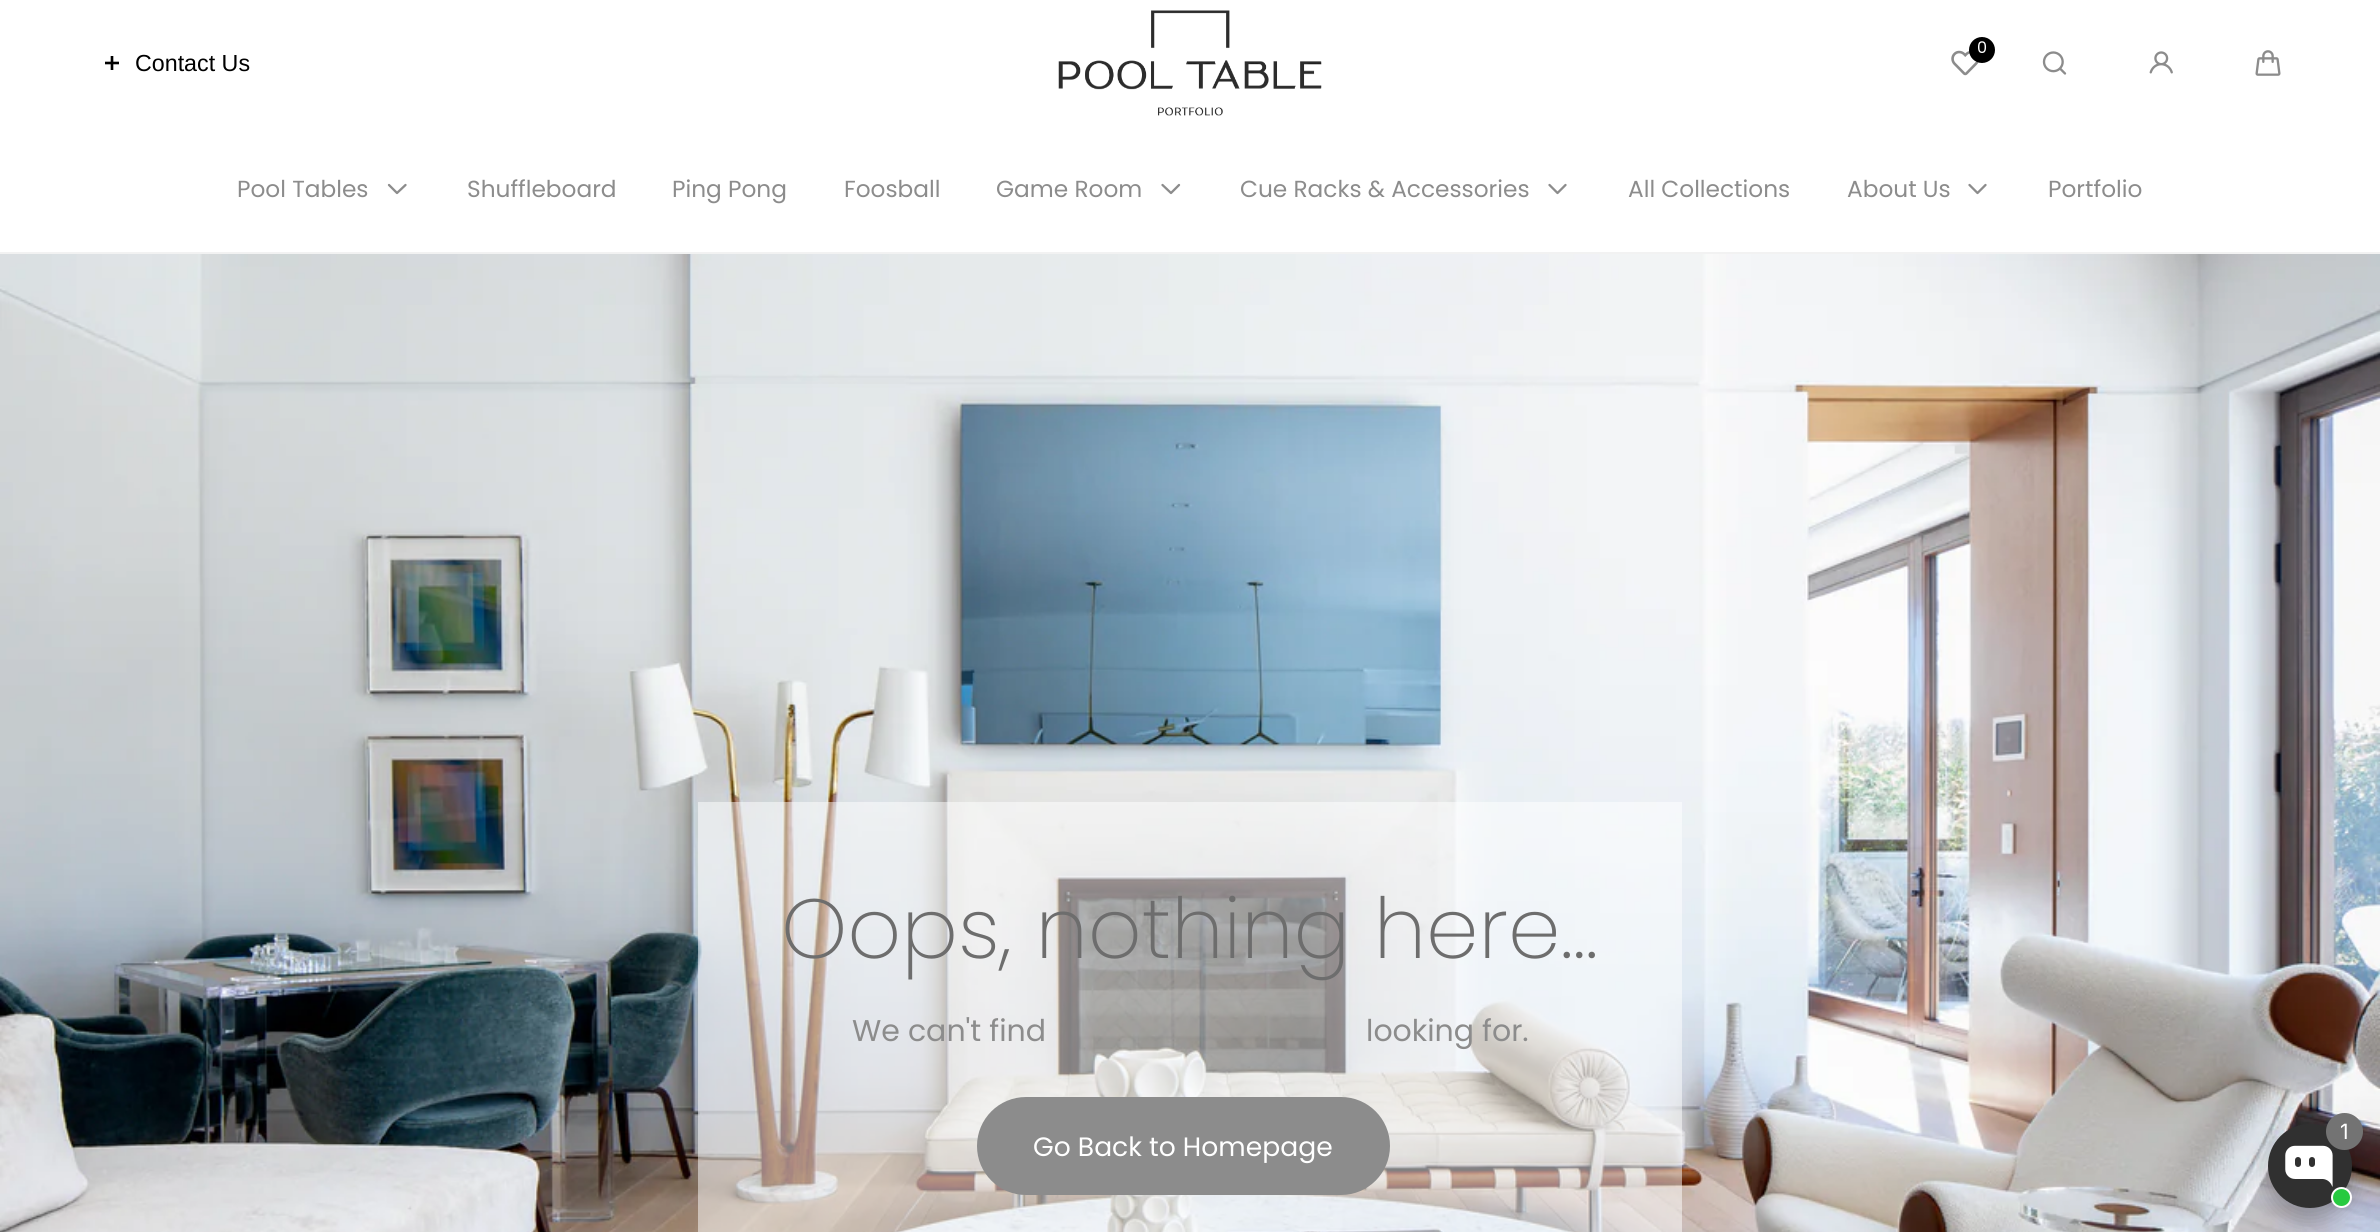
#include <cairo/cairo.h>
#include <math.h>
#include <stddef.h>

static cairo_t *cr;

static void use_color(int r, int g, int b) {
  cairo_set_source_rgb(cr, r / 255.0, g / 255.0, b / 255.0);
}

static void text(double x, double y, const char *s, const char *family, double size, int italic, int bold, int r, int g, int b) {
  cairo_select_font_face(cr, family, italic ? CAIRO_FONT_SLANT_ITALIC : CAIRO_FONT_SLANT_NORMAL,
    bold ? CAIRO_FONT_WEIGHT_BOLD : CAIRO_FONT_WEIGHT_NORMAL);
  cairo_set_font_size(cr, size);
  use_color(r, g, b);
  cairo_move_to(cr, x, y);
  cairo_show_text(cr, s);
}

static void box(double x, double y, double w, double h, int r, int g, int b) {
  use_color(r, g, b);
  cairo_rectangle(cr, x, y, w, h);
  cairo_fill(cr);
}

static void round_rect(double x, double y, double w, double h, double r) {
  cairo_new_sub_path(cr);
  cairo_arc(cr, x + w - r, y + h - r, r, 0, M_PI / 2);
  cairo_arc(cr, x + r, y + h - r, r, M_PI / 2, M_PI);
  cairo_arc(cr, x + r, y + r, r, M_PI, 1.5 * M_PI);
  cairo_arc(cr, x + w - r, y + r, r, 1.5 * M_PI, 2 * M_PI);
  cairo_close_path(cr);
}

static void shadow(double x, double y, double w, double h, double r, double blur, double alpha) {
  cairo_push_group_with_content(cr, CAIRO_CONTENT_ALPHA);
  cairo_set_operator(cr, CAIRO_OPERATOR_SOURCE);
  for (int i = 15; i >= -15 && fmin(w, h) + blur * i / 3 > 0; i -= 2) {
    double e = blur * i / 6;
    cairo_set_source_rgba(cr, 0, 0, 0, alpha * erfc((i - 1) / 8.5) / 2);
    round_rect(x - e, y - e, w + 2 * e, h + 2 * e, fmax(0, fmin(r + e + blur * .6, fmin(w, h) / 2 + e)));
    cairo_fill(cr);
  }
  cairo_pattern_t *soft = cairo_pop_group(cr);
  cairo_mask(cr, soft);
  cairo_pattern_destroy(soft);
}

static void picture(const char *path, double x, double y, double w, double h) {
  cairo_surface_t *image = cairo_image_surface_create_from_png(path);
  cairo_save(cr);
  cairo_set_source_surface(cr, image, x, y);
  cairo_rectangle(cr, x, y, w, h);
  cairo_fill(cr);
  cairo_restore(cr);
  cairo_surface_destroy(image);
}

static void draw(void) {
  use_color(255, 255, 255);
  cairo_paint(cr);
  box(0, 252, 2380, 2, 242, 242, 242);
  picture("img_01.png", 1058, 10, 264, 106);
  picture("img_02.png", 1951, 50, 28, 26);
  use_color(0, 0, 0);
  cairo_arc(cr, 1982, 50, 13, 0, 2 * M_PI);
  cairo_fill(cr);
  picture("img_03.png", 2042, 51, 25, 24);
  picture("img_04.png", 2149, 51, 24, 23);
  picture("img_05.png", 2255, 50, 26, 26);
  picture("img_06.png", 105, 56, 14, 14);
  cairo_new_path(cr);
  cairo_move_to(cr, 389, 185);
  cairo_line_to(cr, 397, 193);
  cairo_line_to(cr, 405.5, 185);
  use_color(140, 140, 140);
  cairo_set_line_width(cr, 2.3);
  cairo_set_line_cap(cr, CAIRO_LINE_CAP_ROUND);
  cairo_set_line_join(cr, CAIRO_LINE_JOIN_ROUND);
  cairo_stroke(cr);
  cairo_new_path(cr);
  cairo_move_to(cr, 1162.5, 185);
  cairo_line_to(cr, 1171, 193);
  cairo_line_to(cr, 1179, 185);
  cairo_stroke(cr);
  cairo_new_path(cr);
  cairo_move_to(cr, 1549.5, 185);
  cairo_line_to(cr, 1557.5, 193);
  cairo_line_to(cr, 1565.5, 185);
  cairo_stroke(cr);
  cairo_new_path(cr);
  cairo_move_to(cr, 1969.5, 185);
  cairo_line_to(cr, 1977.5, 193);
  cairo_line_to(cr, 1985.5, 185);
  cairo_stroke(cr);
  picture("img_07.png", 0, 254, 2380, 978);
  cairo_set_source_rgba(cr, 1, 1, 1, 0.5);
  cairo_rectangle(cr, 698, 802, 984, 430);
  cairo_fill(cr);
  use_color(140, 140, 140);
  round_rect(977, 1097, 413, 98, 49);
  cairo_fill(cr);
  use_color(0, 0, 0);
  shadow(2268, 1134, 84, 84, 42, 10.5, 0.25);
  use_color(48, 48, 48);
  cairo_arc(cr, 2310, 1166, 42, 0, 2 * M_PI);
  cairo_fill(cr);
  picture("img_08.png", 2285, 1145, 48, 42);
  use_color(39, 202, 64);
  cairo_arc(cr, 2341.5, 1197.5, 9.5, 0, 2 * M_PI);
  cairo_fill_preserve(cr);
  use_color(255, 255, 255);
  cairo_set_line_width(cr, 2);
  cairo_set_line_cap(cr, CAIRO_LINE_CAP_BUTT);
  cairo_set_line_join(cr, CAIRO_LINE_JOIN_MITER);
  cairo_stroke(cr);
  use_color(115, 115, 115);
  cairo_arc(cr, 2344.5, 1131.5, 18.5, 0, 2 * M_PI);
  cairo_fill(cr);
  text(1977, 53, "0", "Poppins", 16, 0, 0, 255, 255, 255);
  text(135, 71, "Contact Us", "Liberation Sans", 23.25, 0, 0, 0, 0, 0);
  text(237, 197, "Pool Tables", "Poppins", 23.25, 0, 0, 140, 140, 140);
  text(467, 197, "Shuffleboard", "Poppins", 23.25, 0, 0, 140, 140, 140);
  text(672, 197, "Ping Pong", "Poppins", 23.25, 0, 0, 140, 140, 140);
  text(844, 197, "Foosball", "Poppins", 23.25, 0, 0, 140, 140, 140);
  text(996, 197, "Game Room", "Poppins", 23.25, 0, 0, 140, 140, 140);
  text(1240, 197, "Cue Racks & Accessories", "Poppins", 23.25, 0, 0, 140, 140, 140);
  text(1628, 197, "All Collections", "Poppins", 23.25, 0, 0, 140, 140, 140);
  text(1847, 197, "About Us", "Poppins", 23.25, 0, 0, 140, 140, 140);
  text(2048, 197, "Portfolio", "Poppins", 23.25, 0, 0, 140, 140, 140);
  text(781, 958, "Oops, nothing here...", "Poppins Light", 84, 0, 0, 109, 109, 109);
  text(852, 1041, "We can't find", "Poppins", 30, 0, 0, 140, 140, 140);
  text(1366, 1041, "looking for.", "Poppins", 30, 0, 0, 140, 140, 140);
  text(1033, 1156, "Go Back to Homepage", "Poppins", 26.6, 0, 0, 255, 255, 255);
  text(2340, 1139, "1", "Inter", 21, 0, 0, 255, 255, 255);
}

int main(void) {
  cairo_surface_t *surface = cairo_image_surface_create(CAIRO_FORMAT_RGB24, 2380, 1232);
  cr = cairo_create(surface);
  cairo_font_options_t *options = cairo_font_options_create();
  cairo_font_options_set_hint_metrics(options, CAIRO_HINT_METRICS_OFF);
  cairo_font_options_set_hint_style(options, CAIRO_HINT_STYLE_NONE);
  cairo_set_font_options(cr, options);
  cairo_set_miter_limit(cr, 4);
  draw();
  cairo_surface_write_to_png(surface, "out.png");
  cairo_font_options_destroy(options);
  cairo_destroy(cr);
  cairo_surface_destroy(surface);
  return 0;
}
